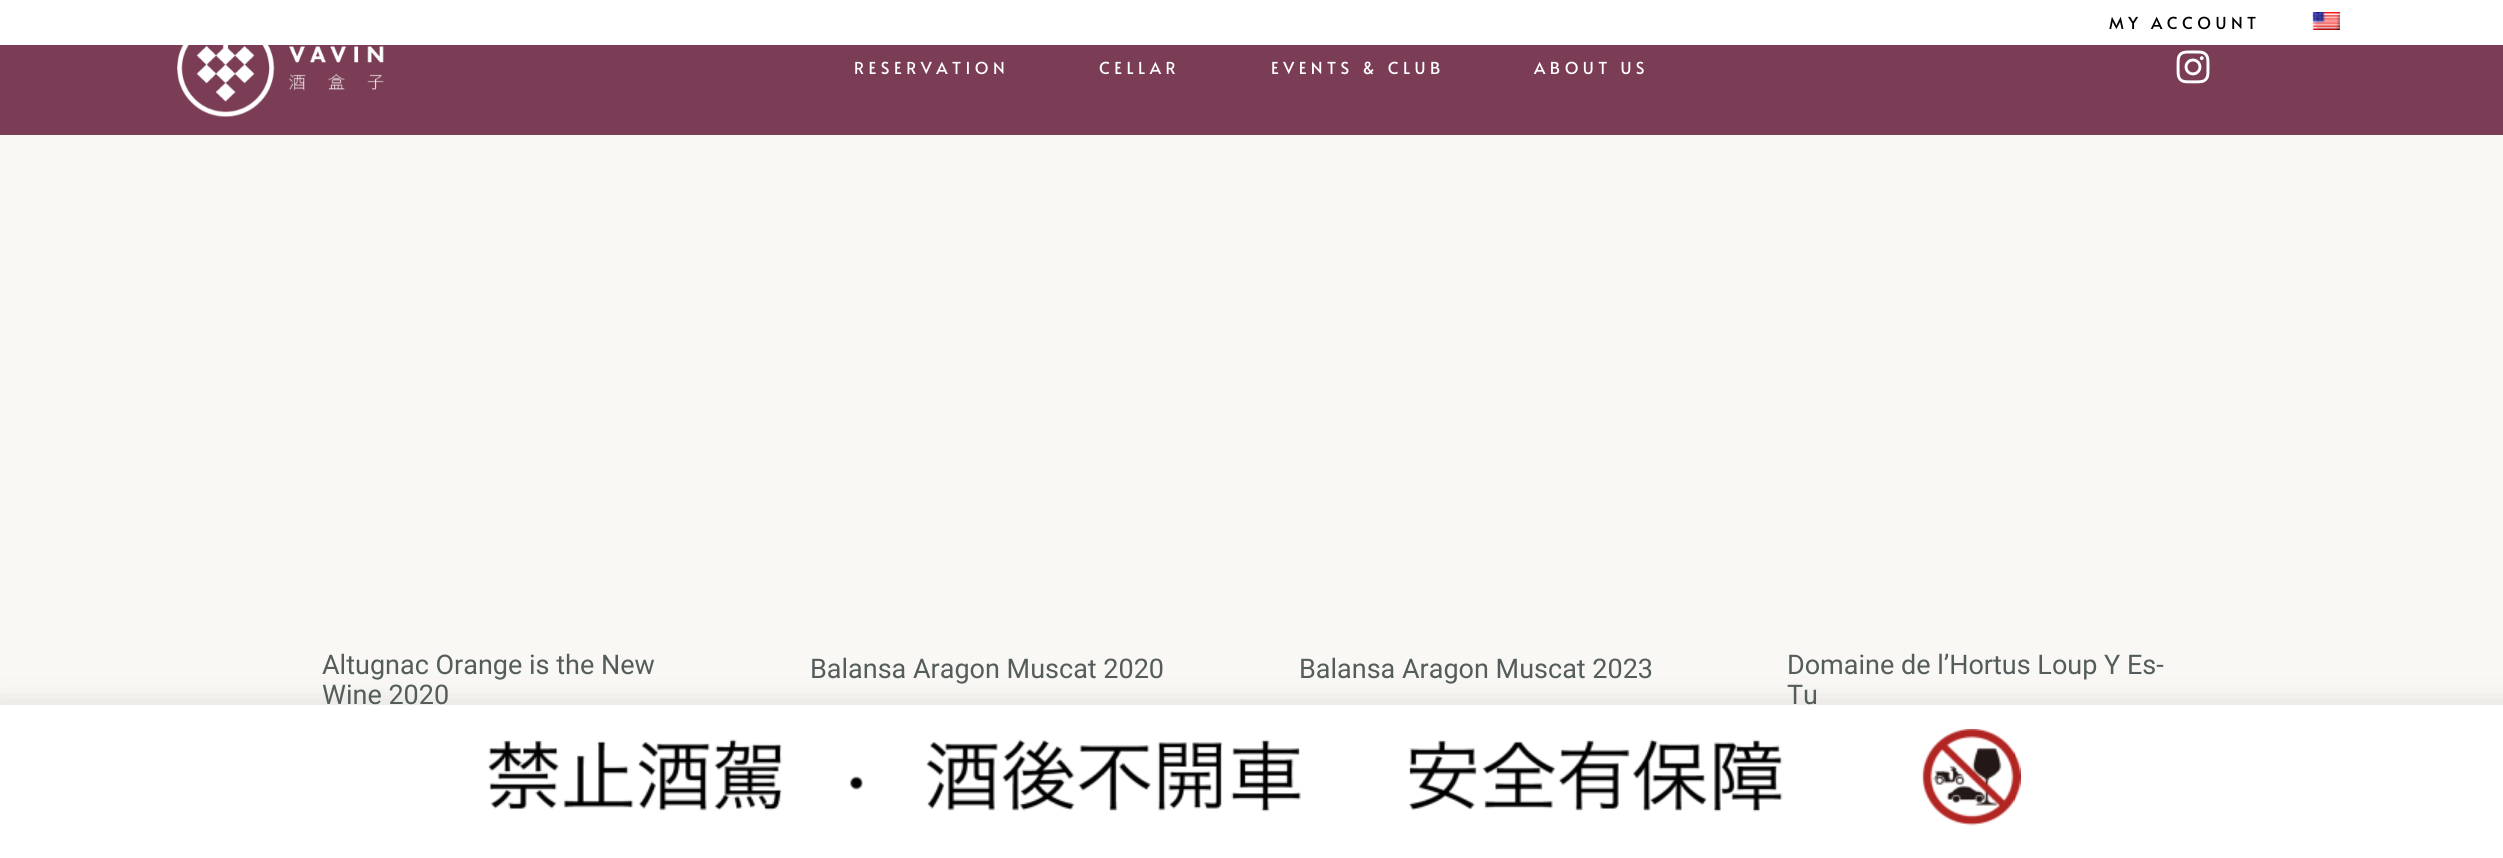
#include <cairo/cairo.h>
#include <math.h>
#include <stddef.h>

static cairo_t *cr;

static void use_color(int r, int g, int b) {
  cairo_set_source_rgb(cr, r / 255.0, g / 255.0, b / 255.0);
}

static void text(double x, double y, const char *s, const char *family, double size, int italic, int bold, int r, int g, int b) {
  cairo_select_font_face(cr, family, italic ? CAIRO_FONT_SLANT_ITALIC : CAIRO_FONT_SLANT_NORMAL,
    bold ? CAIRO_FONT_WEIGHT_BOLD : CAIRO_FONT_WEIGHT_NORMAL);
  cairo_set_font_size(cr, size);
  use_color(r, g, b);
  cairo_move_to(cr, x, y);
  cairo_show_text(cr, s);
}

static void spaced_text(double x, double y, const char *s, double letter, double word) {
  cairo_move_to(cr, x, y);
  while (*s) {
    char ch[5] = {0};
    int n = 0;
    do ch[n++] = *s++; while ((*s & 0xC0) == 0x80);
    cairo_show_text(cr, ch);
    cairo_rel_move_to(cr, letter + word * (*ch == ' '), 0);
  }
}

static void box(double x, double y, double w, double h, int r, int g, int b) {
  use_color(r, g, b);
  cairo_rectangle(cr, x, y, w, h);
  cairo_fill(cr);
}

static void round_rect(double x, double y, double w, double h, double r) {
  cairo_new_sub_path(cr);
  cairo_arc(cr, x + w - r, y + h - r, r, 0, M_PI / 2);
  cairo_arc(cr, x + r, y + h - r, r, M_PI / 2, M_PI);
  cairo_arc(cr, x + r, y + r, r, M_PI, 1.5 * M_PI);
  cairo_arc(cr, x + w - r, y + r, r, 1.5 * M_PI, 2 * M_PI);
  cairo_close_path(cr);
}

static void shadow(double x, double y, double w, double h, double r, double blur, double alpha) {
  cairo_push_group_with_content(cr, CAIRO_CONTENT_ALPHA);
  cairo_set_operator(cr, CAIRO_OPERATOR_SOURCE);
  for (int i = 15; i >= -15 && fmin(w, h) + blur * i / 3 > 0; i -= 2) {
    double e = blur * i / 6;
    cairo_set_source_rgba(cr, 0, 0, 0, alpha * erfc((i - 1) / 8.5) / 2);
    round_rect(x - e, y - e, w + 2 * e, h + 2 * e, fmax(0, fmin(r + e + blur * .6, fmin(w, h) / 2 + e)));
    cairo_fill(cr);
  }
  cairo_pattern_t *soft = cairo_pop_group(cr);
  cairo_mask(cr, soft);
  cairo_pattern_destroy(soft);
}

static void picture(const char *path, double x, double y, double w, double h) {
  cairo_surface_t *image = cairo_image_surface_create_from_png(path);
  cairo_save(cr);
  cairo_set_source_surface(cr, image, x, y);
  cairo_rectangle(cr, x, y, w, h);
  cairo_fill(cr);
  cairo_restore(cr);
  cairo_surface_destroy(image);
}

static void draw(void) {
  use_color(249, 248, 244);
  cairo_paint(cr);
  box(0, 0, 2503, 45, 255, 255, 255);
  picture("img_01.png", 2312, 12, 28, 18);
  box(0, 45, 2503, 90, 123, 61, 86);
  picture("img_02.png", 177, 45, 207, 72);
  picture("img_03.png", 2176, 50, 34, 34);
  use_color(0, 0, 0);
  shadow(-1, 713, 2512, 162, 0, 17, 0.2);
  box(0, 705, 2503, 153, 255, 255, 255);
  picture("img_04.png", 488, 729, 1533, 97);
  cairo_select_font_face(cr, "Alata", CAIRO_FONT_SLANT_NORMAL, CAIRO_FONT_WEIGHT_NORMAL);
  cairo_set_font_size(cr, 16.5);
  use_color(0, 0, 0);
  spaced_text(2109, 29, "MY ACCOUNT", 4.5, 0);
  use_color(255, 255, 255);
  spaced_text(854, 74, "RESERVATION", 4.5, 0);
  spaced_text(1099, 74, "CELLAR", 4.5, 0);
  spaced_text(1271, 74, "EVENTS & CLUB", 4.5, 0);
  spaced_text(1534, 74, "ABOUT US", 4.5, 0);
  text(322, 674, "Altugnac Orange is the New", "Roboto", 27, 0, 0, 84, 93, 92);
  text(322, 704, "Wine 2020", "Roboto", 27, 0, 0, 84, 93, 92);
  text(810, 678, "Balansa Aragon Muscat 2020", "Roboto", 27, 0, 0, 84, 93, 92);
  text(1299, 678, "Balansa Aragon Muscat 2023", "Roboto", 27, 0, 0, 84, 93, 92);
  text(1787, 674, "Domaine de l’Hortus Loup Y Es-", "Roboto", 27, 0, 0, 84, 93, 92);
  text(1787, 704, "Tu", "Roboto", 27, 0, 0, 84, 93, 92);
}

int main(void) {
  cairo_surface_t *surface = cairo_image_surface_create(CAIRO_FORMAT_RGB24, 2503, 858);
  cr = cairo_create(surface);
  cairo_font_options_t *options = cairo_font_options_create();
  cairo_font_options_set_hint_metrics(options, CAIRO_HINT_METRICS_OFF);
  cairo_font_options_set_hint_style(options, CAIRO_HINT_STYLE_NONE);
  cairo_set_font_options(cr, options);
  cairo_set_miter_limit(cr, 4);
  draw();
  cairo_surface_write_to_png(surface, "out.png");
  cairo_font_options_destroy(options);
  cairo_destroy(cr);
  cairo_surface_destroy(surface);
  return 0;
}
